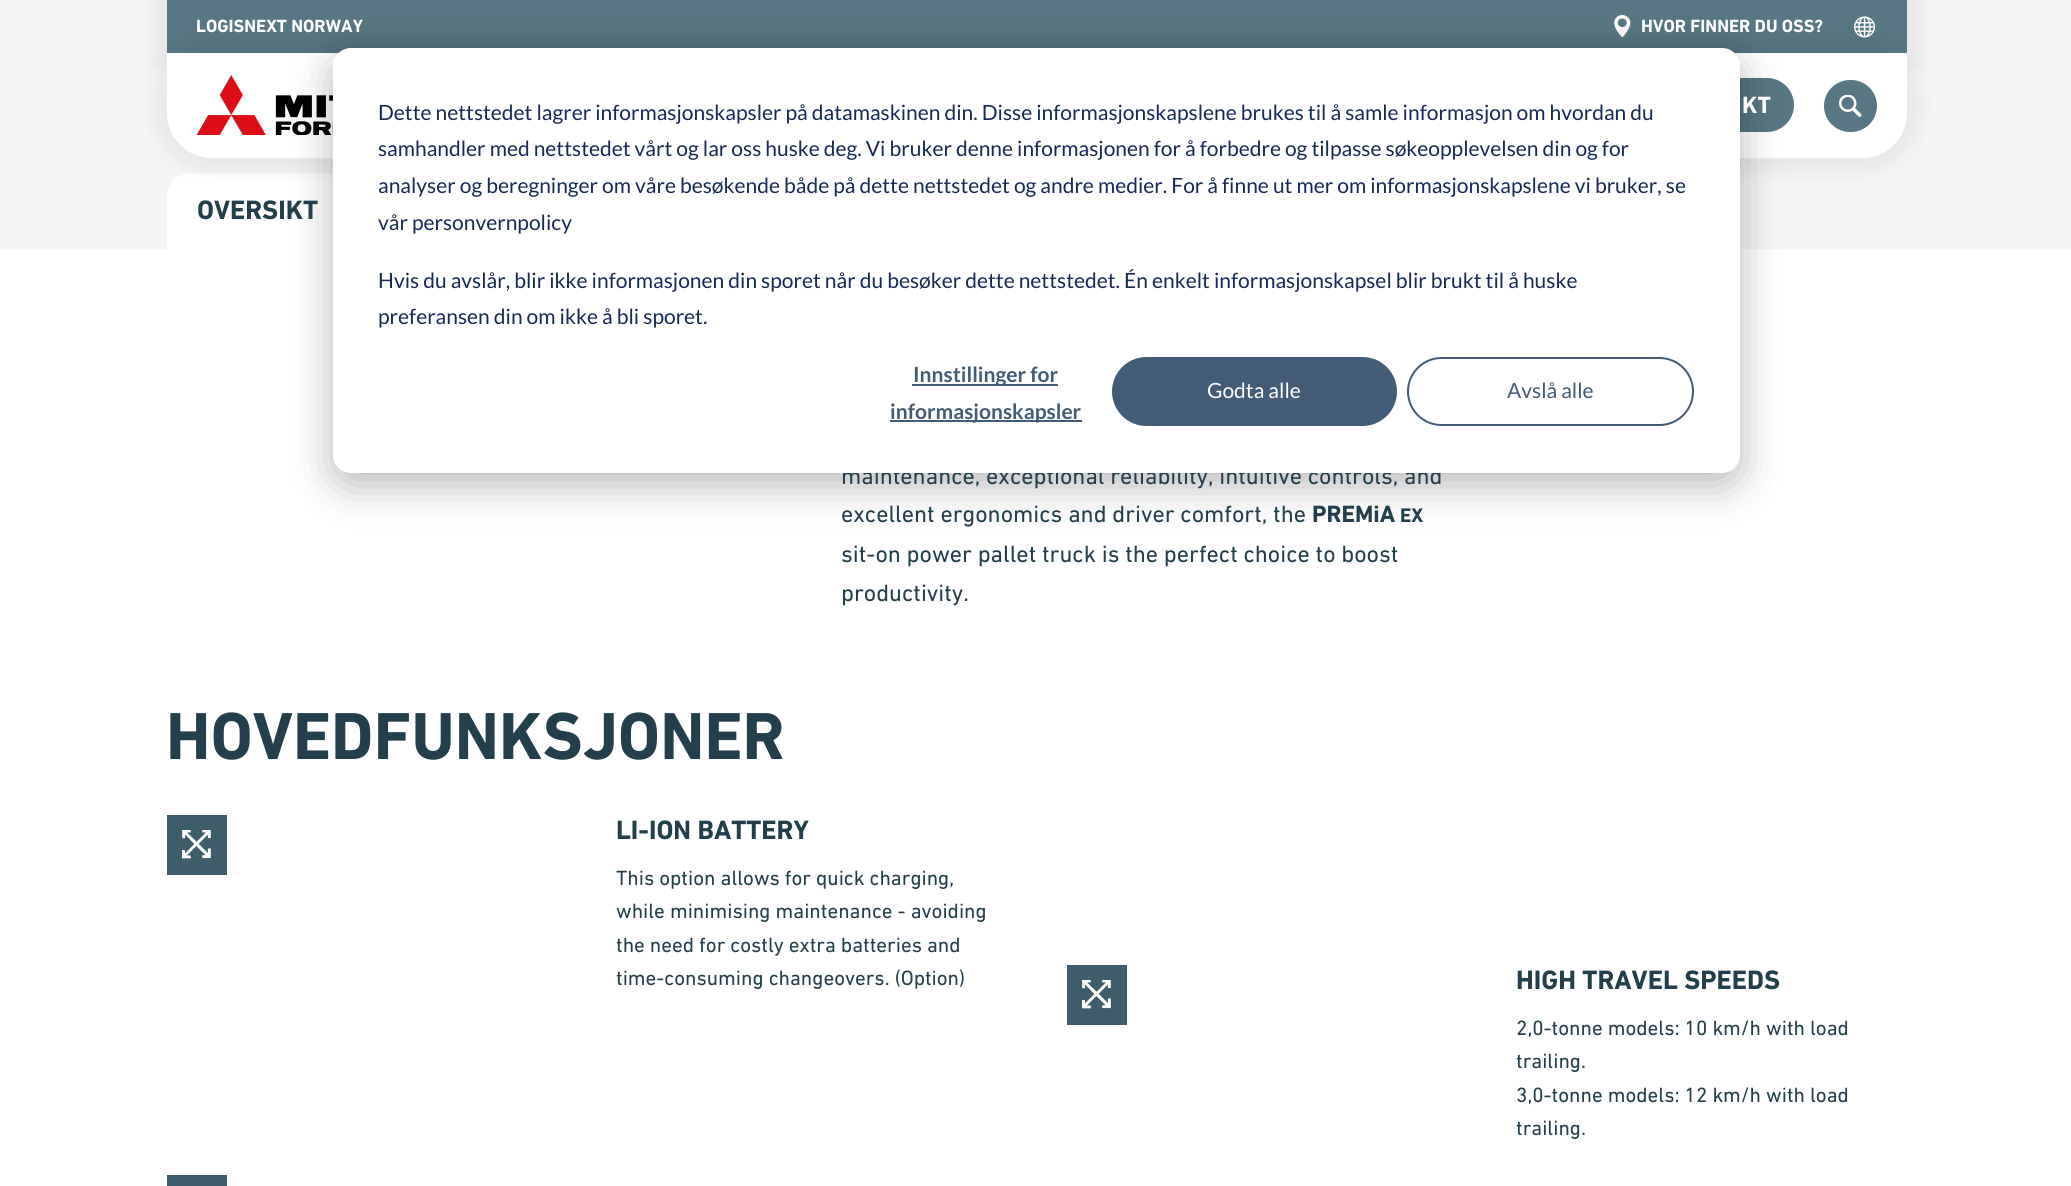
#include <cairo/cairo.h>
#include <math.h>
#include <stddef.h>

static cairo_t *cr;

static void use_color(int r, int g, int b) {
  cairo_set_source_rgb(cr, r / 255.0, g / 255.0, b / 255.0);
}

static void text(double x, double y, const char *s, const char *family, double size, int italic, int bold, int r, int g, int b) {
  cairo_select_font_face(cr, family, italic ? CAIRO_FONT_SLANT_ITALIC : CAIRO_FONT_SLANT_NORMAL,
    bold ? CAIRO_FONT_WEIGHT_BOLD : CAIRO_FONT_WEIGHT_NORMAL);
  cairo_set_font_size(cr, size);
  use_color(r, g, b);
  cairo_move_to(cr, x, y);
  cairo_show_text(cr, s);
}

static void box(double x, double y, double w, double h, int r, int g, int b) {
  use_color(r, g, b);
  cairo_rectangle(cr, x, y, w, h);
  cairo_fill(cr);
}

static void round_rect(double x, double y, double w, double h, double r) {
  cairo_new_sub_path(cr);
  cairo_arc(cr, x + w - r, y + h - r, r, 0, M_PI / 2);
  cairo_arc(cr, x + r, y + h - r, r, M_PI / 2, M_PI);
  cairo_arc(cr, x + r, y + r, r, M_PI, 1.5 * M_PI);
  cairo_arc(cr, x + w - r, y + r, r, 1.5 * M_PI, 2 * M_PI);
  cairo_close_path(cr);
}

static void shadow(double x, double y, double w, double h, double r, double blur, double alpha) {
  cairo_push_group_with_content(cr, CAIRO_CONTENT_ALPHA);
  cairo_set_operator(cr, CAIRO_OPERATOR_SOURCE);
  for (int i = 15; i >= -15 && fmin(w, h) + blur * i / 3 > 0; i -= 2) {
    double e = blur * i / 6;
    cairo_set_source_rgba(cr, 0, 0, 0, alpha * erfc((i - 1) / 8.5) / 2);
    round_rect(x - e, y - e, w + 2 * e, h + 2 * e, fmax(0, fmin(r + e + blur * .6, fmin(w, h) / 2 + e)));
    cairo_fill(cr);
  }
  cairo_pattern_t *soft = cairo_pop_group(cr);
  cairo_mask(cr, soft);
  cairo_pattern_destroy(soft);
}

static void picture(const char *path, double x, double y, double w, double h) {
  cairo_surface_t *image = cairo_image_surface_create_from_png(path);
  cairo_save(cr);
  cairo_set_source_surface(cr, image, x, y);
  cairo_rectangle(cr, x, y, w, h);
  cairo_fill(cr);
  cairo_restore(cr);
  cairo_surface_destroy(image);
}

static void draw(void) {
  use_color(255, 255, 255);
  cairo_paint(cr);
  box(0, 0, 2071, 249, 245, 245, 246);
  use_color(0, 0, 0);
  shadow(152, -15, 1770, 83, 0, 7.5, 0.05);
  box(167, 0, 1740, 53, 86, 119, 131);
  picture("img_01.png", 1614, 15, 17, 23);
  picture("img_02.png", 1854, 16, 22, 22);
  use_color(255, 255, 255);
  cairo_new_path(cr);
  cairo_move_to(cr, 190, 173);
  cairo_line_to(cr, 325, 173);
  cairo_curve_to(cr, 337.5, 173, 348, 183.5, 348, 196);
  cairo_line_to(cr, 348, 249);
  cairo_line_to(cr, 167, 249);
  cairo_line_to(cr, 167, 196);
  cairo_curve_to(cr, 167, 183.5, 177.5, 173, 190, 173);
  cairo_close_path(cr);
  cairo_fill(cr);
  use_color(0, 0, 0);
  shadow(152, 38, 1770, 135, 60, 7.5, 0.05);
  use_color(255, 255, 255);
  cairo_new_path(cr);
  cairo_move_to(cr, 167, 53);
  cairo_line_to(cr, 1907, 53);
  cairo_line_to(cr, 1907, 113);
  cairo_curve_to(cr, 1907, 138, 1887, 158, 1862, 158);
  cairo_line_to(cr, 212, 158);
  cairo_curve_to(cr, 187, 158, 167, 138, 167, 113);
  cairo_close_path(cr);
  cairo_fill(cr);
  picture("img_03.png", 197, 75, 136, 60);
  use_color(86, 119, 131);
  round_rect(1644, 78, 150, 54, 27);
  cairo_fill(cr);
  round_rect(1824, 80, 53, 52, 26);
  cairo_fill(cr);
  picture("img_04.png", 1839, 95, 23, 22);
  use_color(0, 0, 0);
  shadow(333, 60, 1407, 425, 18, 21, 0.28);
  box(167, 815, 60, 60, 60, 93, 105);
  picture("img_05.png", 182, 830, 29, 29);
  box(1067, 965, 60, 60, 60, 93, 105);
  picture("img_05.png", 1082, 980, 29, 29);
  box(167, 1175, 60, 11, 60, 93, 105);
  text(196, 32, "LOGISNEXT NORWAY", "Din Next", 18, 0, 1, 255, 255, 255);
  text(1641, 32, "HVOR FINNER DU OSS?", "Din Next", 18, 0, 1, 255, 255, 255);
  text(1742, 113, "KT", "Din Next", 24, 0, 1, 255, 255, 255);
  text(197, 219, "OVERSIKT", "Din Next", 27, 0, 1, 34, 63, 75);
  text(841, 484, "maintenance, exceptional reliability, intuitive controls, and", "Din Next", 24, 0, 0, 34, 63, 75);
  use_color(255, 255, 255);
  round_rect(333, 48, 1407, 425, 18);
  cairo_fill(cr);
  round_rect(1408, 358, 285, 67, 33.5);
  use_color(66, 91, 118);
  cairo_stroke(cr);
  text(1507, 398, "Avslå alle", "Lato", 21, 0, 0, 66, 91, 118);
  round_rect(1113, 358, 283, 67, 33.5);
  cairo_fill_preserve(cr);
  cairo_stroke(cr);
  text(1207, 398, "Godta alle", "Lato", 21, 0, 0, 255, 255, 255);
  box(890, 420, 192, 2, 66, 91, 118);
  text(890, 419, "informasjonskapsler", "Lato", 21, 0, 1, 66, 91, 118);
  box(912, 384, 146, 2, 66, 91, 118);
  text(913, 382, "Innstillinger for", "Lato", 21, 0, 1, 66, 91, 118);
  text(378, 324, "preferansen din om ikke å bli sporet.", "Lato", 21, 0, 0, 21, 41, 90);
  text(378, 288, "Hvis du avslår, blir ikke informasjonen din sporet når du besøker dette nettstedet. Én enkelt informasjonskapsel blir brukt til å huske", "Lato", 21, 0, 0, 21, 41, 90);
  text(378, 230, "vår personvernpolicy", "Lato", 21, 0, 0, 21, 41, 90);
  text(378, 193, "analyser og beregninger om våre besøkende både på dette nettstedet og andre medier. For å finne ut mer om informasjonskapslene vi bruker, se", "Lato", 21, 0, 0, 21, 41, 90);
  text(378, 156, "samhandler med nettstedet vårt og lar oss huske deg. Vi bruker denne informasjonen for å forbedre og tilpasse søkeopplevelsen din og for", "Lato", 21, 0, 0, 21, 41, 90);
  text(378, 120, "Dette nettstedet lagrer informasjonskapsler på datamaskinen din. Disse informasjonskapslene brukes til å samle informasjon om hvordan du", "Lato", 21, 0, 0, 21, 41, 90);
  text(841, 522, "excellent ergonomics and driver comfort, the", "Din Next", 24, 0, 0, 34, 63, 75);
  text(1312, 522, "PREMiA", "Din Next", 24, 0, 1, 34, 63, 75);
  text(1400, 522, "EX", "Din Next", 20, 0, 1, 34, 63, 75);
  text(841, 562, "sit-on power pallet truck is the perfect choice to boost", "Din Next", 24, 0, 0, 34, 63, 75);
  text(841, 601, "productivity.", "Din Next", 24, 0, 0, 34, 63, 75);
  text(166, 759, "HOVEDFUNKSJONER", "Din Next", 67.5, 0, 1, 34, 63, 75);
  text(616, 839, "LI-ION BATTERY", "Din Next", 27, 0, 1, 34, 63, 75);
  text(616, 885, "This option allows for quick charging,", "Din Next", 21, 0, 0, 34, 63, 75);
  text(616, 918, "while minimising maintenance - avoiding", "Din Next", 21, 0, 0, 34, 63, 75);
  text(616, 952, "the need for costly extra batteries and", "Din Next", 21, 0, 0, 34, 63, 75);
  text(616, 985, "time-consuming changeovers. (Option)", "Din Next", 21, 0, 0, 34, 63, 75);
  text(1516, 989, "HIGH TRAVEL SPEEDS", "Din Next", 27, 0, 1, 34, 63, 75);
  text(1516, 1035, "2,0-tonne models: 10 km/h with load", "Din Next", 21, 0, 0, 34, 63, 75);
  text(1516, 1068, "trailing.", "Din Next", 21, 0, 0, 34, 63, 75);
  text(1516, 1102, "3,0-tonne models: 12 km/h with load", "Din Next", 21, 0, 0, 34, 63, 75);
  text(1516, 1135, "trailing.", "Din Next", 21, 0, 0, 34, 63, 75);
}

int main(void) {
  cairo_surface_t *surface = cairo_image_surface_create(CAIRO_FORMAT_RGB24, 2071, 1186);
  cr = cairo_create(surface);
  cairo_font_options_t *options = cairo_font_options_create();
  cairo_font_options_set_hint_metrics(options, CAIRO_HINT_METRICS_OFF);
  cairo_font_options_set_hint_style(options, CAIRO_HINT_STYLE_NONE);
  cairo_set_font_options(cr, options);
  cairo_set_miter_limit(cr, 4);
  draw();
  cairo_surface_write_to_png(surface, "out.png");
  cairo_font_options_destroy(options);
  cairo_destroy(cr);
  cairo_surface_destroy(surface);
  return 0;
}
